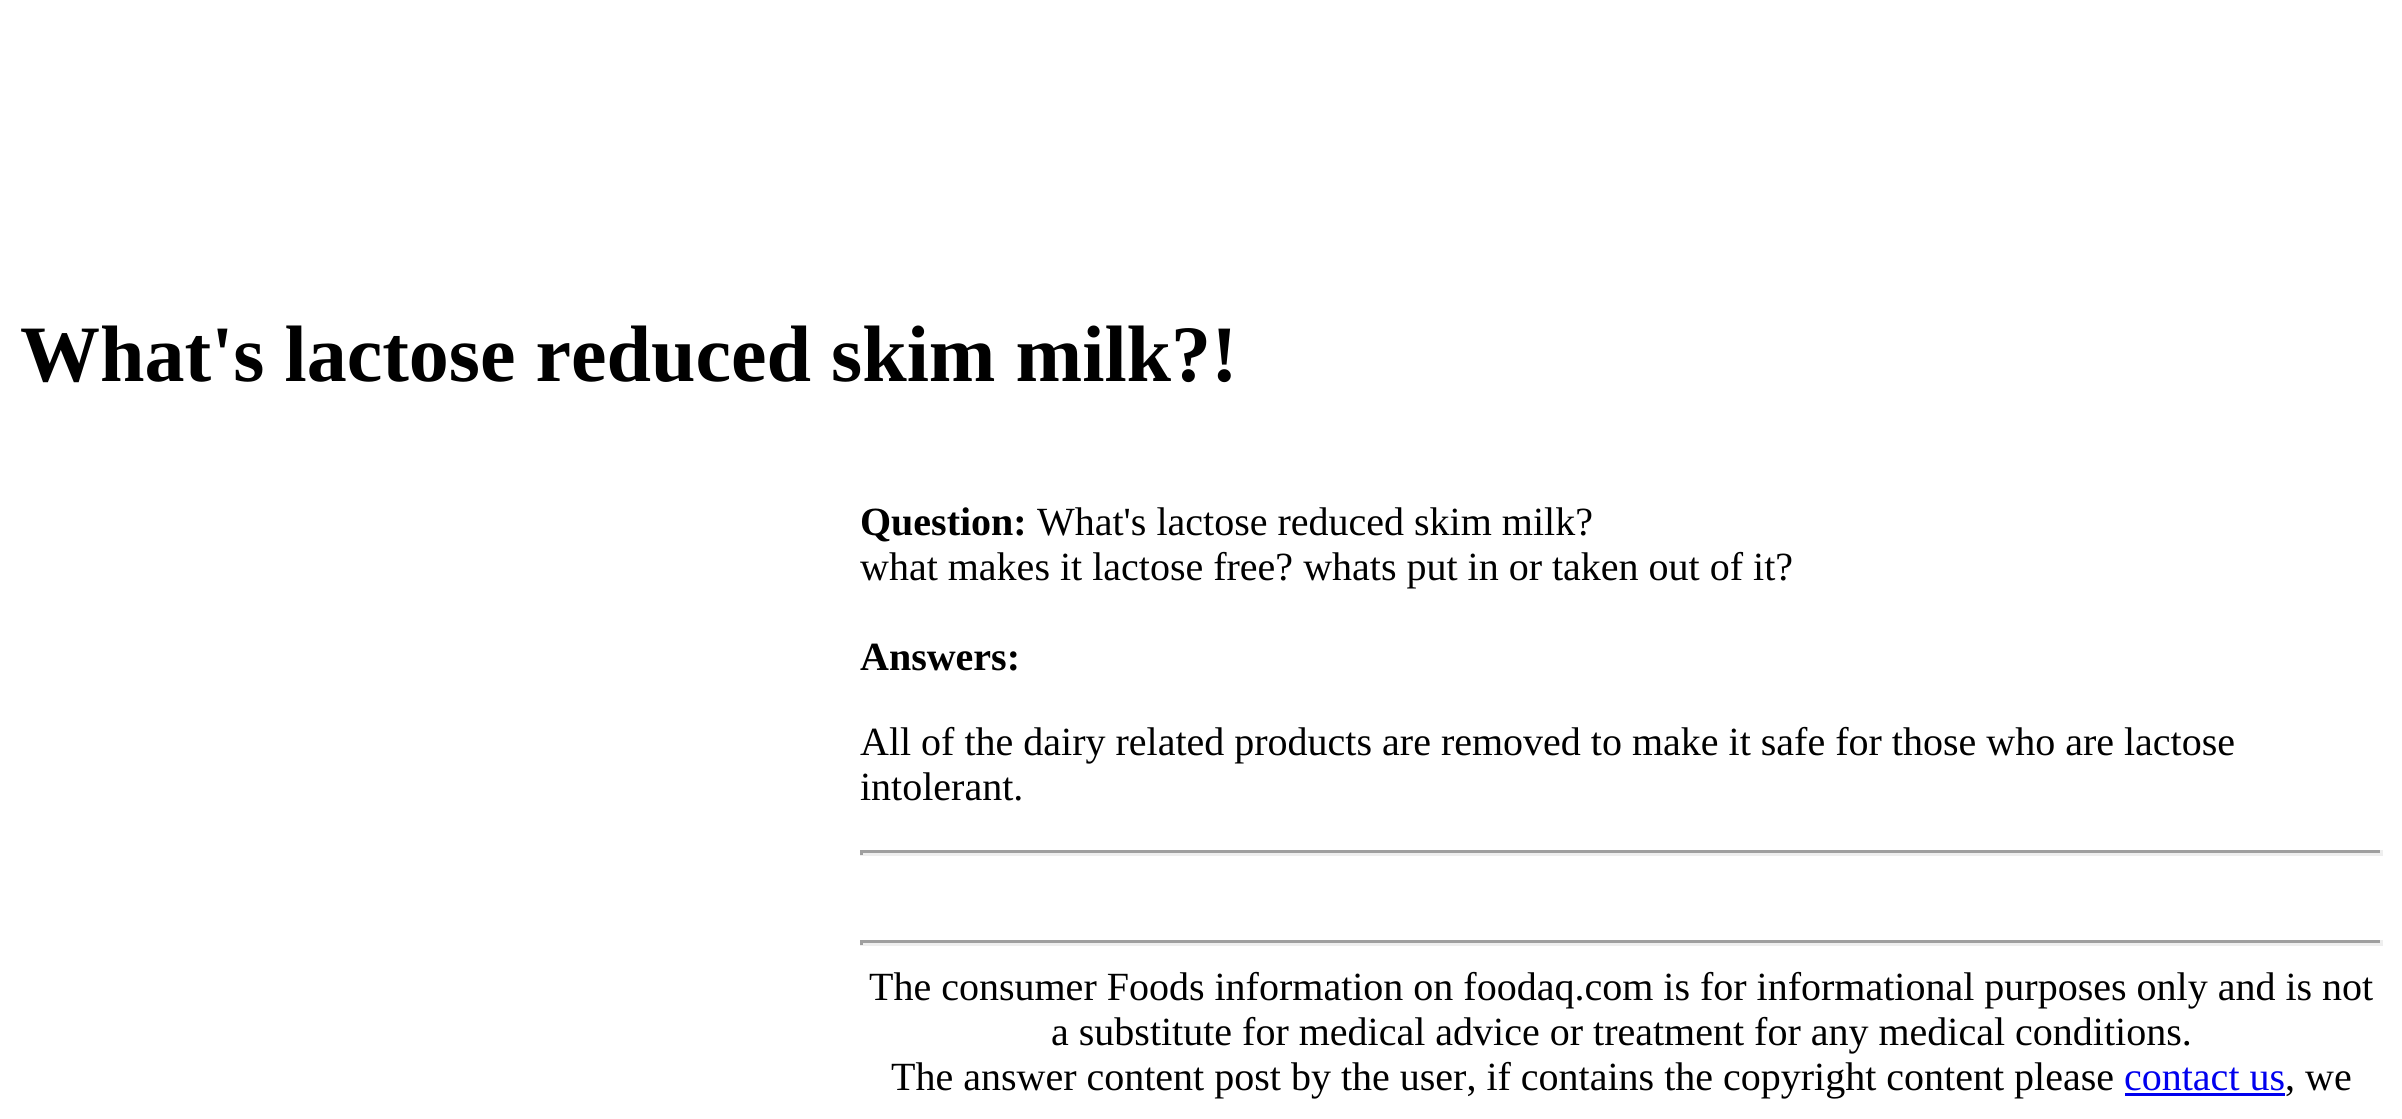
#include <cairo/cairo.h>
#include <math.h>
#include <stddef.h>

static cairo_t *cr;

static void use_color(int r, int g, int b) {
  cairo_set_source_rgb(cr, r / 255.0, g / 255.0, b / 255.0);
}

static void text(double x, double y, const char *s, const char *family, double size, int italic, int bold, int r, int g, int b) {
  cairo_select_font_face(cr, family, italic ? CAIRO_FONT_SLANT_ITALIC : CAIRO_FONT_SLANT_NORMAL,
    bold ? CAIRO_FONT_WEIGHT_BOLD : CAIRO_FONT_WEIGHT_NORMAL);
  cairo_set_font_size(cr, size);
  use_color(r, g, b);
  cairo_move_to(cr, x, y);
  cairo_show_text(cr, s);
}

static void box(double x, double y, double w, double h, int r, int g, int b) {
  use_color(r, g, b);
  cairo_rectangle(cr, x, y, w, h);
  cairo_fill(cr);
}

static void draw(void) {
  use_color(255, 255, 255);
  cairo_paint(cr);
  box(860, 850, 1523, 3, 159, 159, 159);
  box(2380, 850, 3, 5, 238, 238, 238);
  box(860, 853, 1523, 3, 238, 238, 238);
  box(860, 850, 3, 5, 159, 159, 159);
  box(860, 940, 1523, 3, 159, 159, 159);
  box(2380, 940, 3, 5, 238, 238, 238);
  box(860, 943, 1523, 3, 238, 238, 238);
  box(860, 940, 3, 5, 159, 159, 159);
  box(2125, 1093, 160, 3, 0, 0, 238);
  text(20, 381, "What's lactose reduced skim milk?!", "Liberation Serif", 80, 0, 1, 0, 0, 0);
  text(860, 535, "Question:", "Liberation Serif", 40, 0, 1, 0, 0, 0);
  text(1037, 535, "What's lactose reduced skim milk?", "Liberation Serif", 40, 0, 0, 0, 0, 0);
  text(860, 580, "what makes it lactose free? whats put in or taken out of it?", "Liberation Serif", 40, 0, 0, 0, 0, 0);
  text(860, 670, "Answers:", "Liberation Serif", 40, 0, 1, 0, 0, 0);
  text(860, 755, "All of the dairy related products are removed to make it safe for those who are lactose", "Liberation Serif", 40, 0, 0, 0, 0, 0);
  text(860, 800, "intolerant.", "Liberation Serif", 40, 0, 0, 0, 0, 0);
  text(869, 1000, "The consumer Foods information on foodaq.com is for informational purposes only and is not", "Liberation Serif", 40, 0, 0, 0, 0, 0);
  text(1051, 1045, "a substitute for medical advice or treatment for any medical conditions.", "Liberation Serif", 40, 0, 0, 0, 0, 0);
  text(891, 1090, "The answer content post by the user, if contains the copyright content please", "Liberation Serif", 40, 0, 0, 0, 0, 0);
  text(2124, 1090, "contact us", "Liberation Serif", 40, 0, 0, 0, 0, 238);
  text(2285, 1090, ", we", "Liberation Serif", 40, 0, 0, 0, 0, 0);
}

int main(void) {
  cairo_surface_t *surface = cairo_image_surface_create(CAIRO_FORMAT_RGB24, 2402, 1119);
  cr = cairo_create(surface);
  cairo_font_options_t *options = cairo_font_options_create();
  cairo_font_options_set_hint_metrics(options, CAIRO_HINT_METRICS_OFF);
  cairo_font_options_set_hint_style(options, CAIRO_HINT_STYLE_NONE);
  cairo_set_font_options(cr, options);
  cairo_set_miter_limit(cr, 4);
  draw();
  cairo_surface_write_to_png(surface, "out.png");
  cairo_font_options_destroy(options);
  cairo_destroy(cr);
  cairo_surface_destroy(surface);
  return 0;
}
